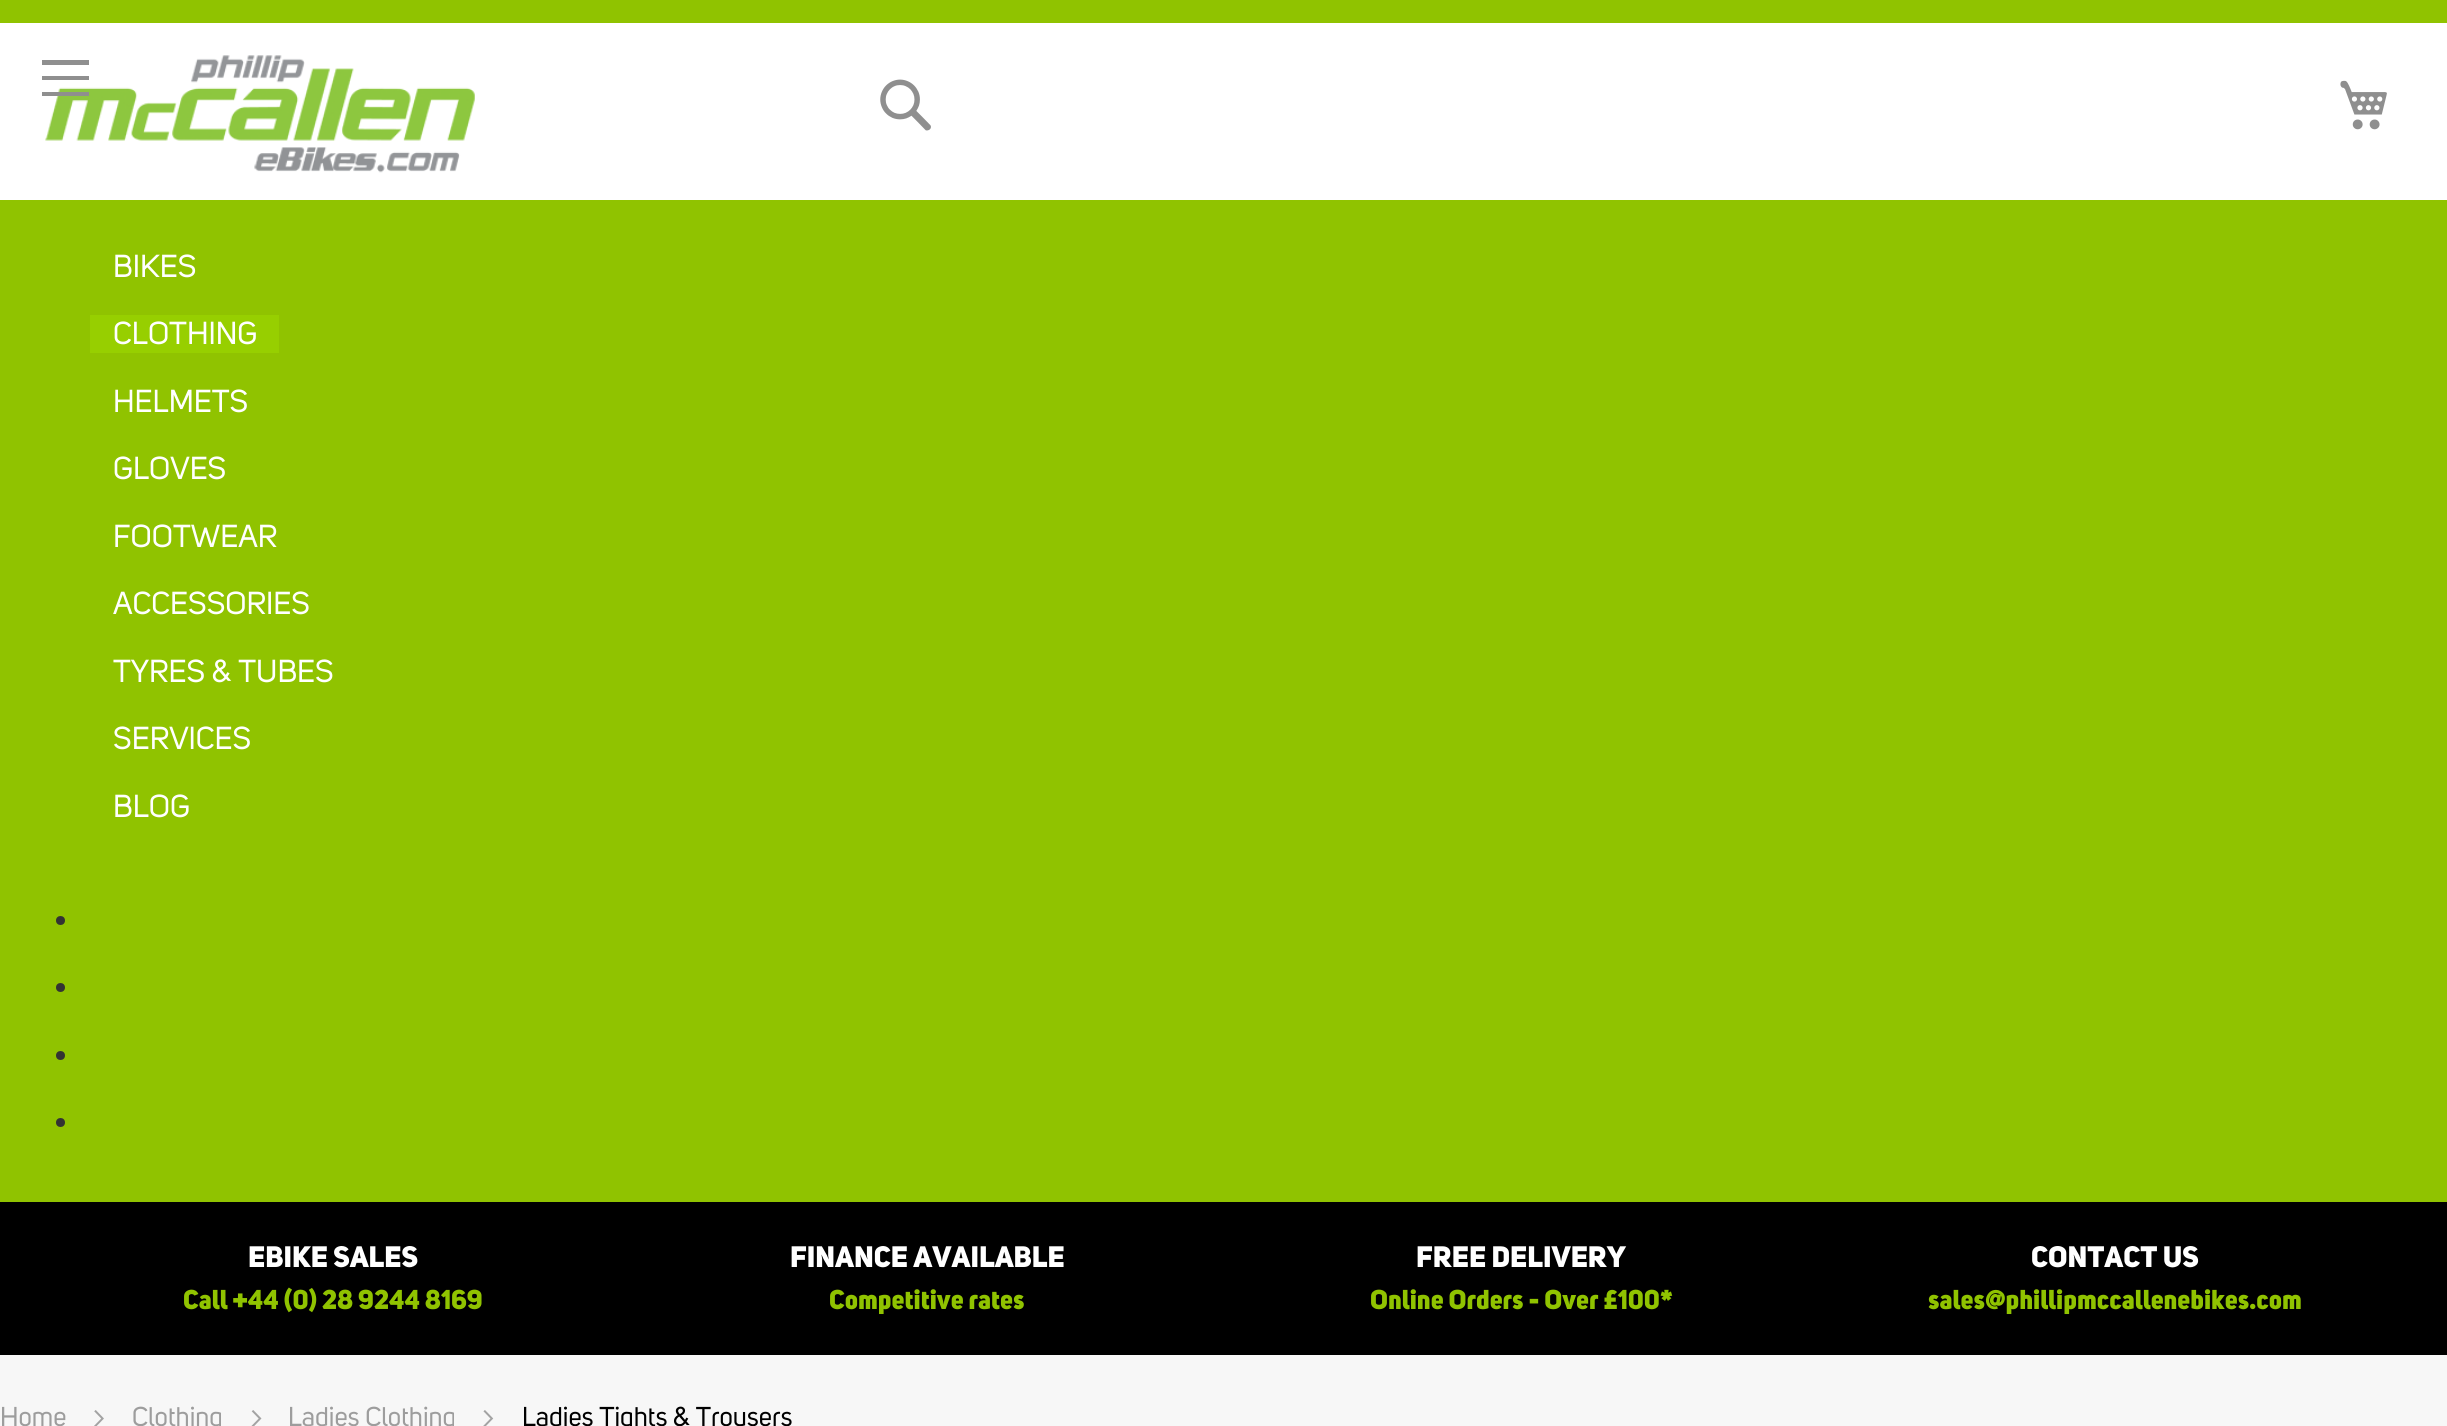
#include <cairo/cairo.h>
#include <math.h>
#include <stddef.h>

static cairo_t *cr;

static void use_color(int r, int g, int b) {
  cairo_set_source_rgb(cr, r / 255.0, g / 255.0, b / 255.0);
}

static void text(double x, double y, const char *s, const char *family, double size, int italic, int bold, int r, int g, int b) {
  cairo_select_font_face(cr, family, italic ? CAIRO_FONT_SLANT_ITALIC : CAIRO_FONT_SLANT_NORMAL,
    bold ? CAIRO_FONT_WEIGHT_BOLD : CAIRO_FONT_WEIGHT_NORMAL);
  cairo_set_font_size(cr, size);
  use_color(r, g, b);
  cairo_move_to(cr, x, y);
  cairo_show_text(cr, s);
}

static void box(double x, double y, double w, double h, int r, int g, int b) {
  use_color(r, g, b);
  cairo_rectangle(cr, x, y, w, h);
  cairo_fill(cr);
}

static void picture(const char *path, double x, double y, double w, double h) {
  cairo_surface_t *image = cairo_image_surface_create_from_png(path);
  cairo_save(cr);
  cairo_set_source_surface(cr, image, x, y);
  cairo_rectangle(cr, x, y, w, h);
  cairo_fill(cr);
  cairo_restore(cr);
  cairo_surface_destroy(image);
}

static void draw(void) {
  use_color(247, 247, 247);
  cairo_paint(cr);
  box(0, 23, 2447, 177, 255, 255, 255);
  box(0, 0, 2447, 23, 144, 195, 0);
  picture("img_01.png", 45, 55, 430, 118);
  use_color(143, 143, 143);
  cairo_new_path(cr);
  cairo_move_to(cr, 42, 60);
  cairo_line_to(cr, 42, 65);
  cairo_line_to(cr, 89, 65);
  cairo_line_to(cr, 89, 60);
  cairo_close_path(cr);
  cairo_move_to(cr, 42, 80);
  cairo_line_to(cr, 89, 80);
  cairo_line_to(cr, 89, 76);
  cairo_line_to(cr, 42, 76);
  cairo_close_path(cr);
  cairo_move_to(cr, 42, 96);
  cairo_line_to(cr, 89, 96);
  cairo_line_to(cr, 89, 92);
  cairo_line_to(cr, 42, 92);
  cairo_close_path(cr);
  cairo_fill(cr);
  picture("img_02.png", 880, 79, 51, 52);
  picture("img_03.png", 2340, 80, 47, 50);
  box(0, 200, 2447, 1002, 144, 195, 0);
  box(90, 315, 189, 38, 151, 207, 0);
  use_color(51, 51, 51);
  cairo_arc(cr, 60.5, 920.5, 4.5, 0, 2 * M_PI);
  cairo_fill(cr);
  cairo_arc(cr, 60.5, 987.5, 4.5, 0, 2 * M_PI);
  cairo_fill(cr);
  cairo_arc(cr, 60.5, 1055.5, 4.5, 0, 2 * M_PI);
  cairo_fill(cr);
  cairo_arc(cr, 60.5, 1122.5, 4.5, 0, 2 * M_PI);
  cairo_fill(cr);
  box(0, 1202, 2447, 153, 0, 0, 0);
  picture("img_04.png", 94, 1410, 10, 16);
  picture("img_05.png", 251, 1410, 11, 16);
  picture("img_06.png", 483, 1410, 11, 16);
  text(113, 277, "BIKES", "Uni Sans", 31.5, 0, 0, 255, 255, 255);
  text(113, 344, "CLOTHING", "Uni Sans", 31.5, 0, 0, 255, 255, 255);
  text(113, 412, "HELMETS", "Uni Sans", 31.5, 0, 0, 255, 255, 255);
  text(113, 479, "GLOVES", "Uni Sans", 31.5, 0, 0, 255, 255, 255);
  text(113, 547, "FOOTWEAR", "Uni Sans", 31.5, 0, 0, 255, 255, 255);
  text(113, 614, "ACCESSORIES", "Uni Sans", 31.5, 0, 0, 255, 255, 255);
  text(113, 682, "TYRES & TUBES", "Uni Sans", 31.5, 0, 0, 255, 255, 255);
  text(113, 749, "SERVICES", "Uni Sans", 31.5, 0, 0, 255, 255, 255);
  text(113, 817, "BLOG", "Uni Sans", 31.5, 0, 0, 255, 255, 255);
  text(248, 1267, "EBIKE SALES", "Uni Sans Black", 29.25, 0, 0, 255, 255, 255);
  text(183, 1309, "Call +44 (0) 28 9244 8169", "Uni Sans Black", 27, 0, 0, 144, 195, 0);
  text(790, 1267, "FINANCE AVAILABLE", "Uni Sans Black", 29.25, 0, 0, 255, 255, 255);
  text(829, 1309, "Competitive rates", "Uni Sans Black", 27, 0, 0, 144, 195, 0);
  text(1416, 1267, "FREE DELIVERY", "Uni Sans Black", 29.25, 0, 0, 255, 255, 255);
  text(1370, 1309, "Online Orders - Over £100*", "Uni Sans Black", 27, 0, 0, 144, 195, 0);
  text(2031, 1267, "CONTACT US", "Uni Sans Black", 29.25, 0, 0, 255, 255, 255);
  text(1928, 1309, "sales@phillipmccallenebikes.com", "Uni Sans Black", 27, 0, 0, 144, 195, 0);
  text(0, 1426, "Home", "Uni Sans", 27, 0, 0, 157, 157, 157);
  text(132, 1426, "Clothing", "Uni Sans", 27, 0, 0, 157, 157, 157);
  text(288, 1426, "Ladies Clothing", "Uni Sans", 27, 0, 0, 157, 157, 157);
  text(522, 1426, "Ladies Tights & Trousers", "Uni Sans", 27, 0, 0, 0, 0, 0);
}

int main(void) {
  cairo_surface_t *surface = cairo_image_surface_create(CAIRO_FORMAT_RGB24, 2447, 1426);
  cr = cairo_create(surface);
  cairo_font_options_t *options = cairo_font_options_create();
  cairo_font_options_set_hint_metrics(options, CAIRO_HINT_METRICS_OFF);
  cairo_font_options_set_hint_style(options, CAIRO_HINT_STYLE_NONE);
  cairo_set_font_options(cr, options);
  cairo_set_miter_limit(cr, 4);
  draw();
  cairo_surface_write_to_png(surface, "out.png");
  cairo_font_options_destroy(options);
  cairo_destroy(cr);
  cairo_surface_destroy(surface);
  return 0;
}
